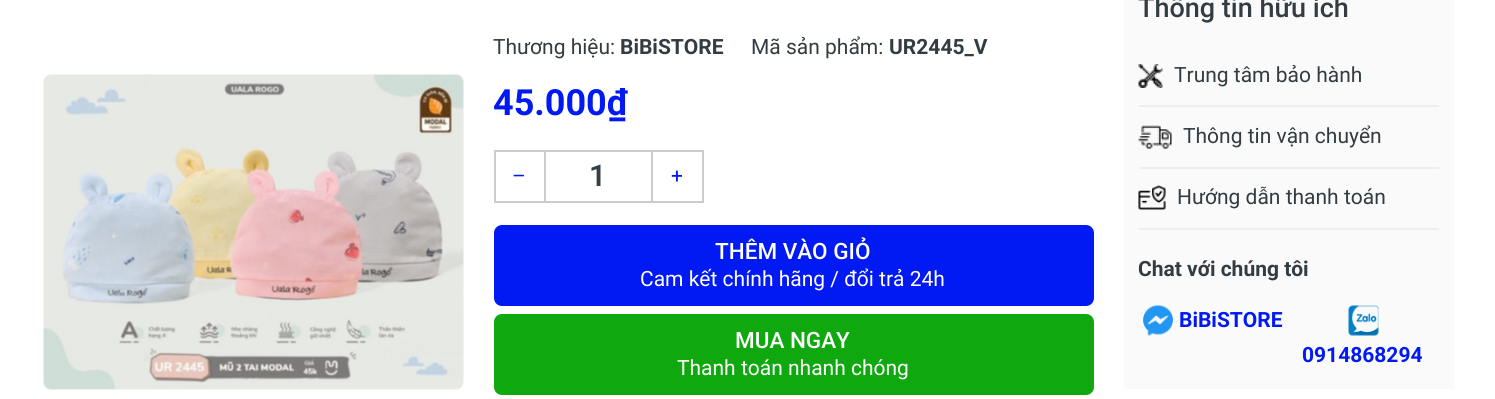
#include <cairo/cairo.h>
#include <math.h>
#include <stddef.h>

static cairo_t *cr;

static void use_color(int r, int g, int b) {
  cairo_set_source_rgb(cr, r / 255.0, g / 255.0, b / 255.0);
}

static void text(double x, double y, const char *s, const char *family, double size, int italic, int bold, int r, int g, int b) {
  cairo_select_font_face(cr, family, italic ? CAIRO_FONT_SLANT_ITALIC : CAIRO_FONT_SLANT_NORMAL,
    bold ? CAIRO_FONT_WEIGHT_BOLD : CAIRO_FONT_WEIGHT_NORMAL);
  cairo_set_font_size(cr, size);
  use_color(r, g, b);
  cairo_move_to(cr, x, y);
  cairo_show_text(cr, s);
}

static void box(double x, double y, double w, double h, int r, int g, int b) {
  use_color(r, g, b);
  cairo_rectangle(cr, x, y, w, h);
  cairo_fill(cr);
}

static void round_rect(double x, double y, double w, double h, double r) {
  cairo_new_sub_path(cr);
  cairo_arc(cr, x + w - r, y + h - r, r, 0, M_PI / 2);
  cairo_arc(cr, x + r, y + h - r, r, M_PI / 2, M_PI);
  cairo_arc(cr, x + r, y + r, r, M_PI, 1.5 * M_PI);
  cairo_arc(cr, x + w - r, y + r, r, 1.5 * M_PI, 2 * M_PI);
  cairo_close_path(cr);
}

static void picture(const char *path, double x, double y, double w, double h) {
  cairo_surface_t *image = cairo_image_surface_create_from_png(path);
  cairo_save(cr);
  cairo_set_source_surface(cr, image, x, y);
  cairo_rectangle(cr, x, y, w, h);
  cairo_fill(cr);
  cairo_restore(cr);
  cairo_surface_destroy(image);
}

static void draw(void) {
  use_color(255, 255, 255);
  cairo_paint(cr);
  picture("img_01.png", 43, 74, 421, 316);
  cairo_rectangle(cr, 495, 151, 50, 51);
  use_color(204, 204, 204);
  cairo_stroke(cr);
  box(546, 150, 105, 2, 204, 204, 204);
  box(546, 201, 105, 2, 204, 204, 204);
  cairo_rectangle(cr, 652, 151, 51, 51);
  cairo_stroke(cr);
  use_color(1, 26, 244);
  round_rect(495, 226, 598, 79, 7);
  cairo_fill_preserve(cr);
  cairo_stroke(cr);
  use_color(15, 168, 15);
  round_rect(495, 315, 598, 79, 7);
  cairo_fill_preserve(cr);
  cairo_stroke(cr);
  box(1124, 0, 330, 389, 250, 250, 250);
  box(1139, 105, 300, 2, 238, 238, 238);
  picture("img_02.png", 1138, 64, 25, 24);
  box(1139, 167, 300, 2, 238, 238, 238);
  picture("img_03.png", 1138, 125, 34, 25);
  box(1139, 228, 300, 2, 238, 238, 238);
  picture("img_04.png", 1138, 185, 28, 25);
  picture("img_05.png", 1143, 305, 30, 31);
  picture("img_06.png", 1348, 305, 31, 31);
  text(493, 54, "Thương hiệu:", "Roboto", 21, 0, 0, 50, 60, 66);
  text(620, 54, "BiBiSTORE", "Roboto", 21, 0, 1, 50, 60, 66);
  text(751, 54, "Mã sản phẩm:", "Roboto", 21, 0, 0, 50, 60, 66);
  text(889, 54, "UR2445_V", "Roboto", 21, 0, 1, 50, 60, 66);
  text(493, 115, "45.000₫", "Roboto", 36, 0, 1, 1, 26, 244);
  text(512, 183, "–", "Roboto", 21, 0, 0, 1, 26, 244);
  text(589, 186, "1", "Roboto SemiBold", 30, 0, 0, 51, 63, 72);
  text(671, 183, "+", "Roboto", 21, 0, 0, 1, 26, 244);
  text(715, 259, "THÊM VÀO GIỎ", "Roboto Medium", 22.5, 0, 0, 255, 255, 255);
  text(640, 286, "Cam kết chính hãng / đổi trả 24h", "Roboto", 21, 0, 0, 255, 255, 255);
  text(735, 348, "MUA NGAY", "Roboto Medium", 22.5, 0, 0, 255, 255, 255);
  text(677, 375, "Thanh toán nhanh chóng", "Roboto", 21, 0, 0, 255, 255, 255);
  text(1138, 17, "Thông tin hữu ích", "Roboto Medium", 27, 0, 0, 50, 60, 66);
  text(1174, 82, "Trung tâm bảo hành", "Roboto", 21, 0, 0, 50, 60, 66);
  text(1183, 143, "Thông tin vận chuyển", "Roboto", 21, 0, 0, 50, 60, 66);
  text(1177, 204, "Hướng dẫn thanh toán", "Roboto", 21, 0, 0, 50, 60, 66);
  text(1138, 276, "Chat với chúng tôi", "Roboto", 21, 0, 1, 50, 60, 66);
  text(1179, 327, "BiBiSTORE", "Roboto", 21, 0, 1, 1, 26, 244);
  text(1302, 362, "0914868294", "Roboto", 21, 0, 1, 1, 26, 244);
}

int main(void) {
  cairo_surface_t *surface = cairo_image_surface_create(CAIRO_FORMAT_RGB24, 1495, 399);
  cr = cairo_create(surface);
  cairo_font_options_t *options = cairo_font_options_create();
  cairo_font_options_set_hint_metrics(options, CAIRO_HINT_METRICS_OFF);
  cairo_font_options_set_hint_style(options, CAIRO_HINT_STYLE_NONE);
  cairo_set_font_options(cr, options);
  cairo_set_miter_limit(cr, 4);
  draw();
  cairo_surface_write_to_png(surface, "out.png");
  cairo_font_options_destroy(options);
  cairo_destroy(cr);
  cairo_surface_destroy(surface);
  return 0;
}
